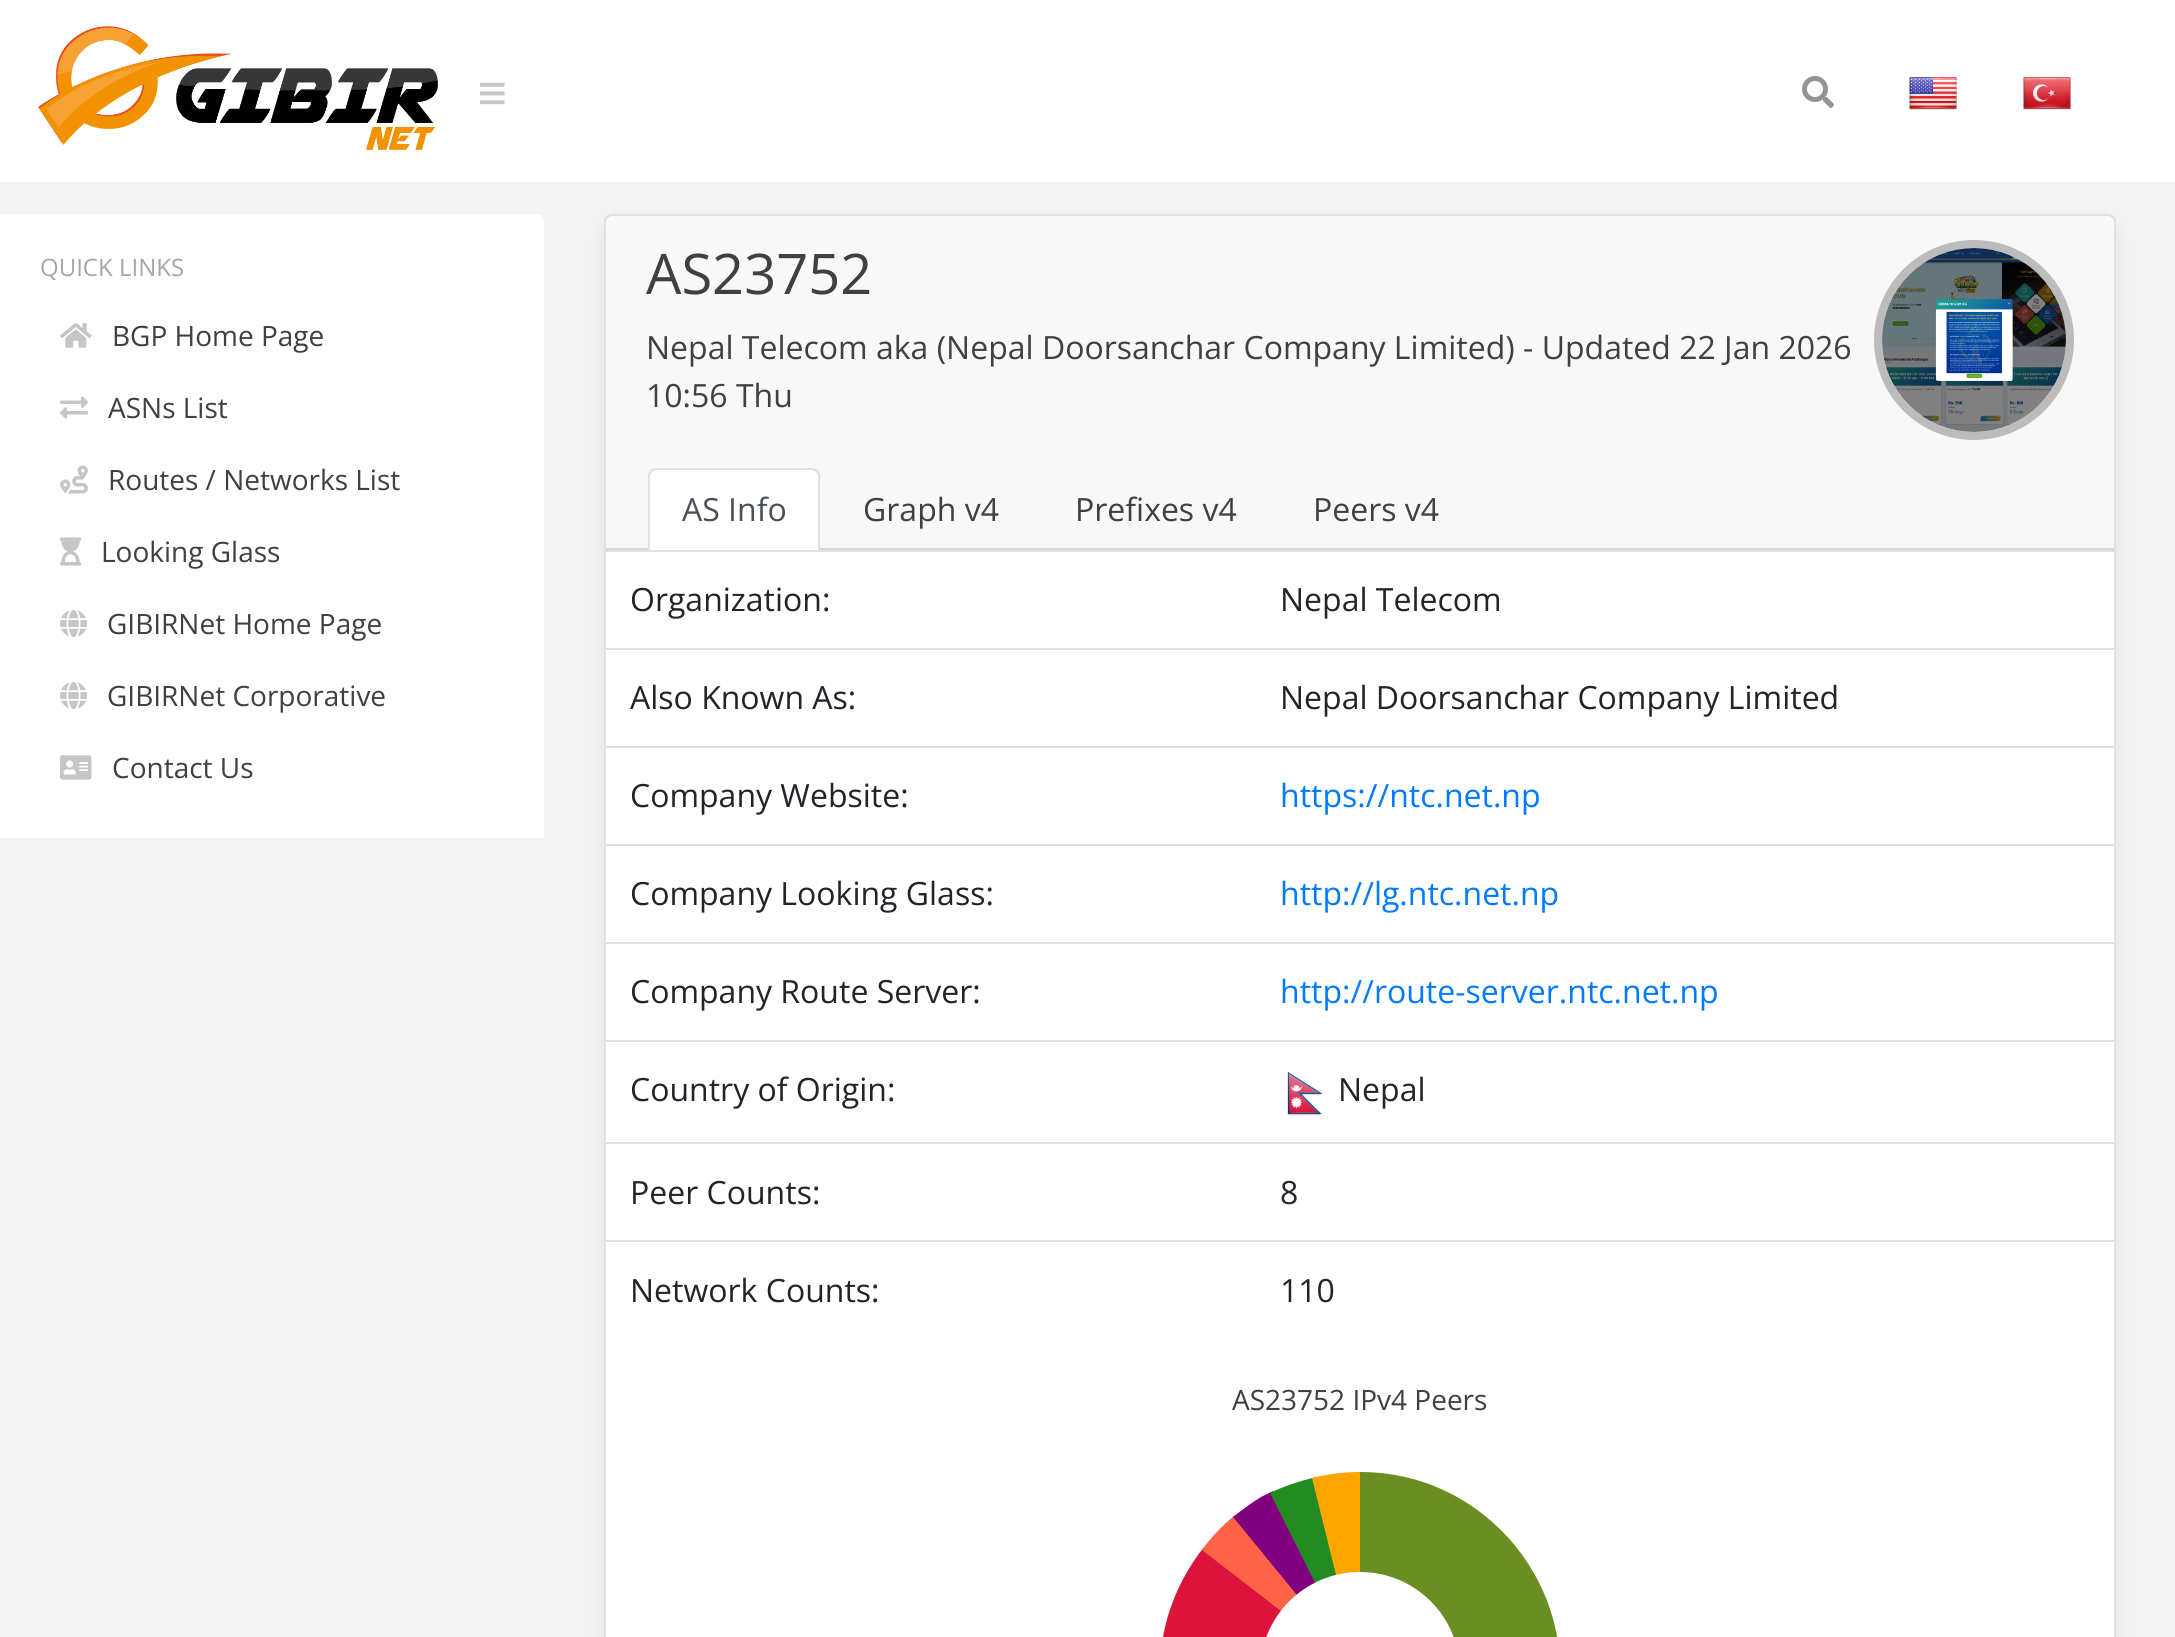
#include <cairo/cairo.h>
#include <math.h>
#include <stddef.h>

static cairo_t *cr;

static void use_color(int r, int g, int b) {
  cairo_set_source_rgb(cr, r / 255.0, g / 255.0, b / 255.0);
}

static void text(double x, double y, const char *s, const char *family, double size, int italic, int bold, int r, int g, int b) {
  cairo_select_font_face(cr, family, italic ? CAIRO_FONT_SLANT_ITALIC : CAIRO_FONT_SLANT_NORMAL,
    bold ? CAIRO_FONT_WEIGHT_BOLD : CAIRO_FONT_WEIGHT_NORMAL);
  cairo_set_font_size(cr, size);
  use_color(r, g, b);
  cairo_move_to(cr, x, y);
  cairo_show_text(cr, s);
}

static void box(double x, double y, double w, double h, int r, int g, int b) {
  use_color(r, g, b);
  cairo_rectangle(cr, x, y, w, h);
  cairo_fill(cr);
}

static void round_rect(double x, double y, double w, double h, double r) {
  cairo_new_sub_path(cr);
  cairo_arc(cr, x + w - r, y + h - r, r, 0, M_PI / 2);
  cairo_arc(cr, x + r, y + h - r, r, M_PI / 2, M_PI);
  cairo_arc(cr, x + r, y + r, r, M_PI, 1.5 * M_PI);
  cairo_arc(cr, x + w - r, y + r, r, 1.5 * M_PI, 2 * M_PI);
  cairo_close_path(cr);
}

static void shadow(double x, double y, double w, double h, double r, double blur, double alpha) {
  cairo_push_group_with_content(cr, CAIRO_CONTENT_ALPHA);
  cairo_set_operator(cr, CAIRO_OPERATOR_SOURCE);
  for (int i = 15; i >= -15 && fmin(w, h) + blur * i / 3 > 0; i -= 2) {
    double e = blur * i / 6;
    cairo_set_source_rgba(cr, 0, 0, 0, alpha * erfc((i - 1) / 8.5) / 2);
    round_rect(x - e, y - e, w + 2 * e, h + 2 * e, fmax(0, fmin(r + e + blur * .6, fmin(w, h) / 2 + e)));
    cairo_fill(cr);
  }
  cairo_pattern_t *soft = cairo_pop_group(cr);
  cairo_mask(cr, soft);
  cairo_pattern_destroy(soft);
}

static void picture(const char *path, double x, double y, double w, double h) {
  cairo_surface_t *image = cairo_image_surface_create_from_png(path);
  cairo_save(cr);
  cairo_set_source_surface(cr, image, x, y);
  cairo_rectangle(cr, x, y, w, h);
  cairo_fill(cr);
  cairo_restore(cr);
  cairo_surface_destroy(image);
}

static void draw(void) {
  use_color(244, 244, 244);
  cairo_paint(cr);
  use_color(255, 255, 255);
  cairo_new_path(cr);
  cairo_move_to(cr, 0, 214);
  cairo_line_to(cr, 536, 214);
  cairo_curve_to(cr, 540.5, 214, 544, 217.5, 544, 222);
  cairo_line_to(cr, 544, 838);
  cairo_line_to(cr, 0, 838);
  cairo_close_path(cr);
  cairo_fill(cr);
  picture("img_01.png", 60, 323, 32, 25);
  picture("img_02.png", 60, 396, 28, 23);
  picture("img_03.png", 60, 465, 28, 29);
  picture("img_04.png", 60, 537, 21, 29);
  picture("img_05.png", 60, 610, 28, 27);
  picture("img_05.png", 60, 682, 28, 27);
  picture("img_06.png", 60, 755, 32, 25);
  box(0, 0, 2175, 182, 255, 255, 255);
  picture("img_07.png", 38, 26, 400, 124);
  picture("img_08.png", 480, 82, 25, 23);
  picture("img_09.png", 1802, 76, 32, 32);
  picture("img_10.png", 1909, 77, 48, 33);
  picture("img_11.png", 2023, 77, 48, 33);
  use_color(0, 0, 0);
  shadow(614, 234, 1492, 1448, 0, 15, 0.15);
  use_color(255, 255, 255);
  round_rect(604, 214, 1512, 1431, 8);
  cairo_fill(cr);
  round_rect(605, 215, 1510, 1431, 7);
  cairo_set_source_rgba(cr, 0, 0, 0, 0.12);
  cairo_stroke(cr);
  cairo_set_source_rgba(cr, 0, 0, 0, 0.03);
  cairo_rectangle(cr, 606, 216, 1508, 332);
  cairo_fill(cr);
  box(606, 548, 1508, 2, 216, 216, 216);
  cairo_arc(cr, 1974, 340, 96, 0, 2 * M_PI);
  use_color(188, 188, 188);
  cairo_set_line_width(cr, 8);
  cairo_stroke(cr);
  picture("img_12.png", 1882, 248, 184, 184);
  use_color(255, 255, 255);
  cairo_new_path(cr);
  cairo_move_to(cr, 656, 468);
  cairo_line_to(cr, 812, 468);
  cairo_curve_to(cr, 816.5, 468, 820, 471.5, 820, 476);
  cairo_line_to(cr, 820, 550);
  cairo_line_to(cr, 648, 550);
  cairo_line_to(cr, 648, 476);
  cairo_curve_to(cr, 648, 471.5, 651.5, 468, 656, 468);
  cairo_close_path(cr);
  cairo_fill(cr);
  use_color(222, 226, 230);
  cairo_new_path(cr);
  cairo_move_to(cr, 656, 468);
  cairo_curve_to(cr, 654, 468, 652, 469, 650, 470);
  cairo_line_to(cr, 652, 472);
  cairo_line_to(cr, 655, 470);
  cairo_line_to(cr, 813, 470);
  cairo_line_to(cr, 816, 472);
  cairo_line_to(cr, 818, 470);
  cairo_curve_to(cr, 816, 469, 814, 468, 812, 468);
  cairo_close_path(cr);
  cairo_fill(cr);
  cairo_new_path(cr);
  cairo_move_to(cr, 820, 552);
  cairo_line_to(cr, 820, 476);
  cairo_curve_to(cr, 820, 474, 819, 472, 818, 470);
  cairo_line_to(cr, 816, 472);
  cairo_line_to(cr, 818, 475);
  cairo_line_to(cr, 818, 550);
  cairo_close_path(cr);
  cairo_fill(cr);
  cairo_new_path(cr);
  cairo_move_to(cr, 648, 552);
  cairo_line_to(cr, 650, 550);
  cairo_line_to(cr, 650, 475);
  cairo_line_to(cr, 652, 472);
  cairo_line_to(cr, 650, 470);
  cairo_curve_to(cr, 649, 472, 648, 474, 648, 476);
  cairo_close_path(cr);
  cairo_fill(cr);
  box(606, 550, 1508, 2, 222, 226, 230);
  box(606, 648, 1508, 2, 222, 226, 230);
  box(606, 746, 1508, 2, 222, 226, 230);
  box(606, 844, 1508, 2, 222, 226, 230);
  box(606, 942, 1508, 2, 222, 226, 230);
  box(606, 1040, 1508, 2, 222, 226, 230);
  picture("img_13.png", 1287, 1072, 36, 44);
  box(606, 1142, 1508, 2, 222, 226, 230);
  box(606, 1240, 1508, 2, 222, 226, 230);
  use_color(107, 142, 35);
  cairo_new_path(cr);
  cairo_move_to(cr, 1555, 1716);
  cairo_line_to(cr, 1360, 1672);
  cairo_line_to(cr, 1357, 1472);
  cairo_curve_to(cr, 1487, 1470, 1584, 1591, 1555, 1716);
  cairo_close_path(cr);
  cairo_fill(cr);
  use_color(220, 20, 60);
  cairo_new_path(cr);
  cairo_move_to(cr, 1360, 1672);
  cairo_line_to(cr, 1160, 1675);
  cairo_curve_to(cr, 1159, 1630, 1174, 1585, 1204, 1547);
  cairo_close_path(cr);
  cairo_fill(cr);
  use_color(255, 99, 71);
  cairo_new_path(cr);
  cairo_move_to(cr, 1202, 1550);
  cairo_curve_to(cr, 1212, 1536, 1222, 1526, 1235, 1515);
  cairo_line_to(cr, 1360, 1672);
  cairo_close_path(cr);
  cairo_fill(cr);
  use_color(128, 0, 128);
  cairo_new_path(cr);
  cairo_move_to(cr, 1233, 1517);
  cairo_curve_to(cr, 1242, 1510, 1251, 1503, 1261, 1497);
  cairo_line_to(cr, 1273, 1491);
  cairo_line_to(cr, 1360, 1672);
  cairo_close_path(cr);
  cairo_fill(cr);
  use_color(34, 139, 34);
  cairo_new_path(cr);
  cairo_move_to(cr, 1360, 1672);
  cairo_line_to(cr, 1270, 1493);
  cairo_curve_to(cr, 1284, 1486, 1300, 1481, 1316, 1477);
  cairo_close_path(cr);
  cairo_fill(cr);
  cairo_save(cr);
  cairo_rectangle(cr, 1160, 1472, 200, 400);
  cairo_clip(cr);
  use_color(255, 165, 0);
  cairo_new_path(cr);
  cairo_move_to(cr, 1419, 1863);
  cairo_line_to(cr, 1408, 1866);
  cairo_line_to(cr, 1312, 1478);
  cairo_curve_to(cr, 1328, 1474, 1344, 1472, 1360, 1472);
  cairo_curve_to(cr, 1470, 1472, 1560, 1561, 1560, 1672);
  cairo_curve_to(cr, 1560, 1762, 1500, 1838, 1419, 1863);
  cairo_close_path(cr);
  cairo_fill(cr);
  cairo_restore(cr);
  use_color(255, 255, 255);
  round_rect(1260, 1572, 200, 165, 100);
  cairo_fill(cr);
  text(40, 276, "QUICK LINKS", "Open Sans", 24, 0, 0, 166, 166, 166);
  text(112, 346, "BGP Home Page", "Open Sans", 28, 0, 0, 64, 64, 64);
  text(108, 418, "ASNs List", "Open Sans", 28, 0, 0, 64, 64, 64);
  text(108, 490, "Routes / Networks List", "Open Sans", 28, 0, 0, 64, 64, 64);
  text(101, 562, "Looking Glass", "Open Sans", 28, 0, 0, 64, 64, 64);
  text(107, 634, "GIBIRNet Home Page", "Open Sans", 28, 0, 0, 64, 64, 64);
  text(107, 706, "GIBIRNet Corporative", "Open Sans", 28, 0, 0, 64, 64, 64);
  text(112, 778, "Contact Us", "Open Sans", 28, 0, 0, 64, 64, 64);
  text(646, 294, "AS23752", "Open Sans", 56, 0, 0, 64, 64, 64);
  text(646, 359, "Nepal Telecom aka (Nepal Doorsanchar Company Limited) - Updated 22 Jan 2026", "Open Sans", 32, 0, 0, 64, 64, 64);
  text(646, 407, "10:56 Thu", "Open Sans", 32, 0, 0, 64, 64, 64);
  text(682, 521, "AS Info", "Open Sans", 32, 0, 0, 73, 80, 87);
  text(863, 521, "Graph v4", "Open Sans", 32, 0, 0, 64, 64, 64);
  text(1075, 521, "Prefixes v4", "Open Sans", 32, 0, 0, 64, 64, 64);
  text(1313, 521, "Peers v4", "Open Sans", 32, 0, 0, 64, 64, 64);
  text(630, 611, "Organization:", "Open Sans", 32, 0, 0, 33, 37, 41);
  text(1280, 611, "Nepal Telecom", "Open Sans", 32, 0, 0, 33, 37, 41);
  text(630, 709, "Also Known As:", "Open Sans", 32, 0, 0, 33, 37, 41);
  text(1280, 709, "Nepal Doorsanchar Company Limited", "Open Sans", 32, 0, 0, 33, 37, 41);
  text(630, 807, "Company Website:", "Open Sans", 32, 0, 0, 33, 37, 41);
  text(1280, 807, "https://ntc.net.np", "Open Sans", 32, 0, 0, 0, 123, 255);
  text(630, 905, "Company Looking Glass:", "Open Sans", 32, 0, 0, 33, 37, 41);
  text(1280, 905, "http://lg.ntc.net.np", "Open Sans", 32, 0, 0, 0, 123, 255);
  text(630, 1003, "Company Route Server:", "Open Sans", 32, 0, 0, 33, 37, 41);
  text(1280, 1003, "http://route-server.ntc.net.np", "Open Sans", 32, 0, 0, 0, 123, 255);
  text(630, 1101, "Country of Origin:", "Open Sans", 32, 0, 0, 33, 37, 41);
  text(1338, 1101, "Nepal", "Open Sans", 32, 0, 0, 33, 37, 41);
  text(630, 1204, "Peer Counts:", "Open Sans", 32, 0, 0, 33, 37, 41);
  text(1280, 1204, "8", "Open Sans", 32, 0, 0, 33, 37, 41);
  text(630, 1302, "Network Counts:", "Open Sans", 32, 0, 0, 33, 37, 41);
  text(1280, 1302, "110", "Open Sans", 32, 0, 0, 33, 37, 41);
  text(1232, 1410, "AS23752 IPv4 Peers", "Open Sans", 28, 0, 0, 64, 64, 64);
}

int main(void) {
  cairo_surface_t *surface = cairo_image_surface_create(CAIRO_FORMAT_RGB24, 2175, 1637);
  cr = cairo_create(surface);
  cairo_font_options_t *options = cairo_font_options_create();
  cairo_font_options_set_hint_metrics(options, CAIRO_HINT_METRICS_OFF);
  cairo_font_options_set_hint_style(options, CAIRO_HINT_STYLE_NONE);
  cairo_set_font_options(cr, options);
  cairo_set_miter_limit(cr, 4);
  draw();
  cairo_surface_write_to_png(surface, "out.png");
  cairo_font_options_destroy(options);
  cairo_destroy(cr);
  cairo_surface_destroy(surface);
  return 0;
}
